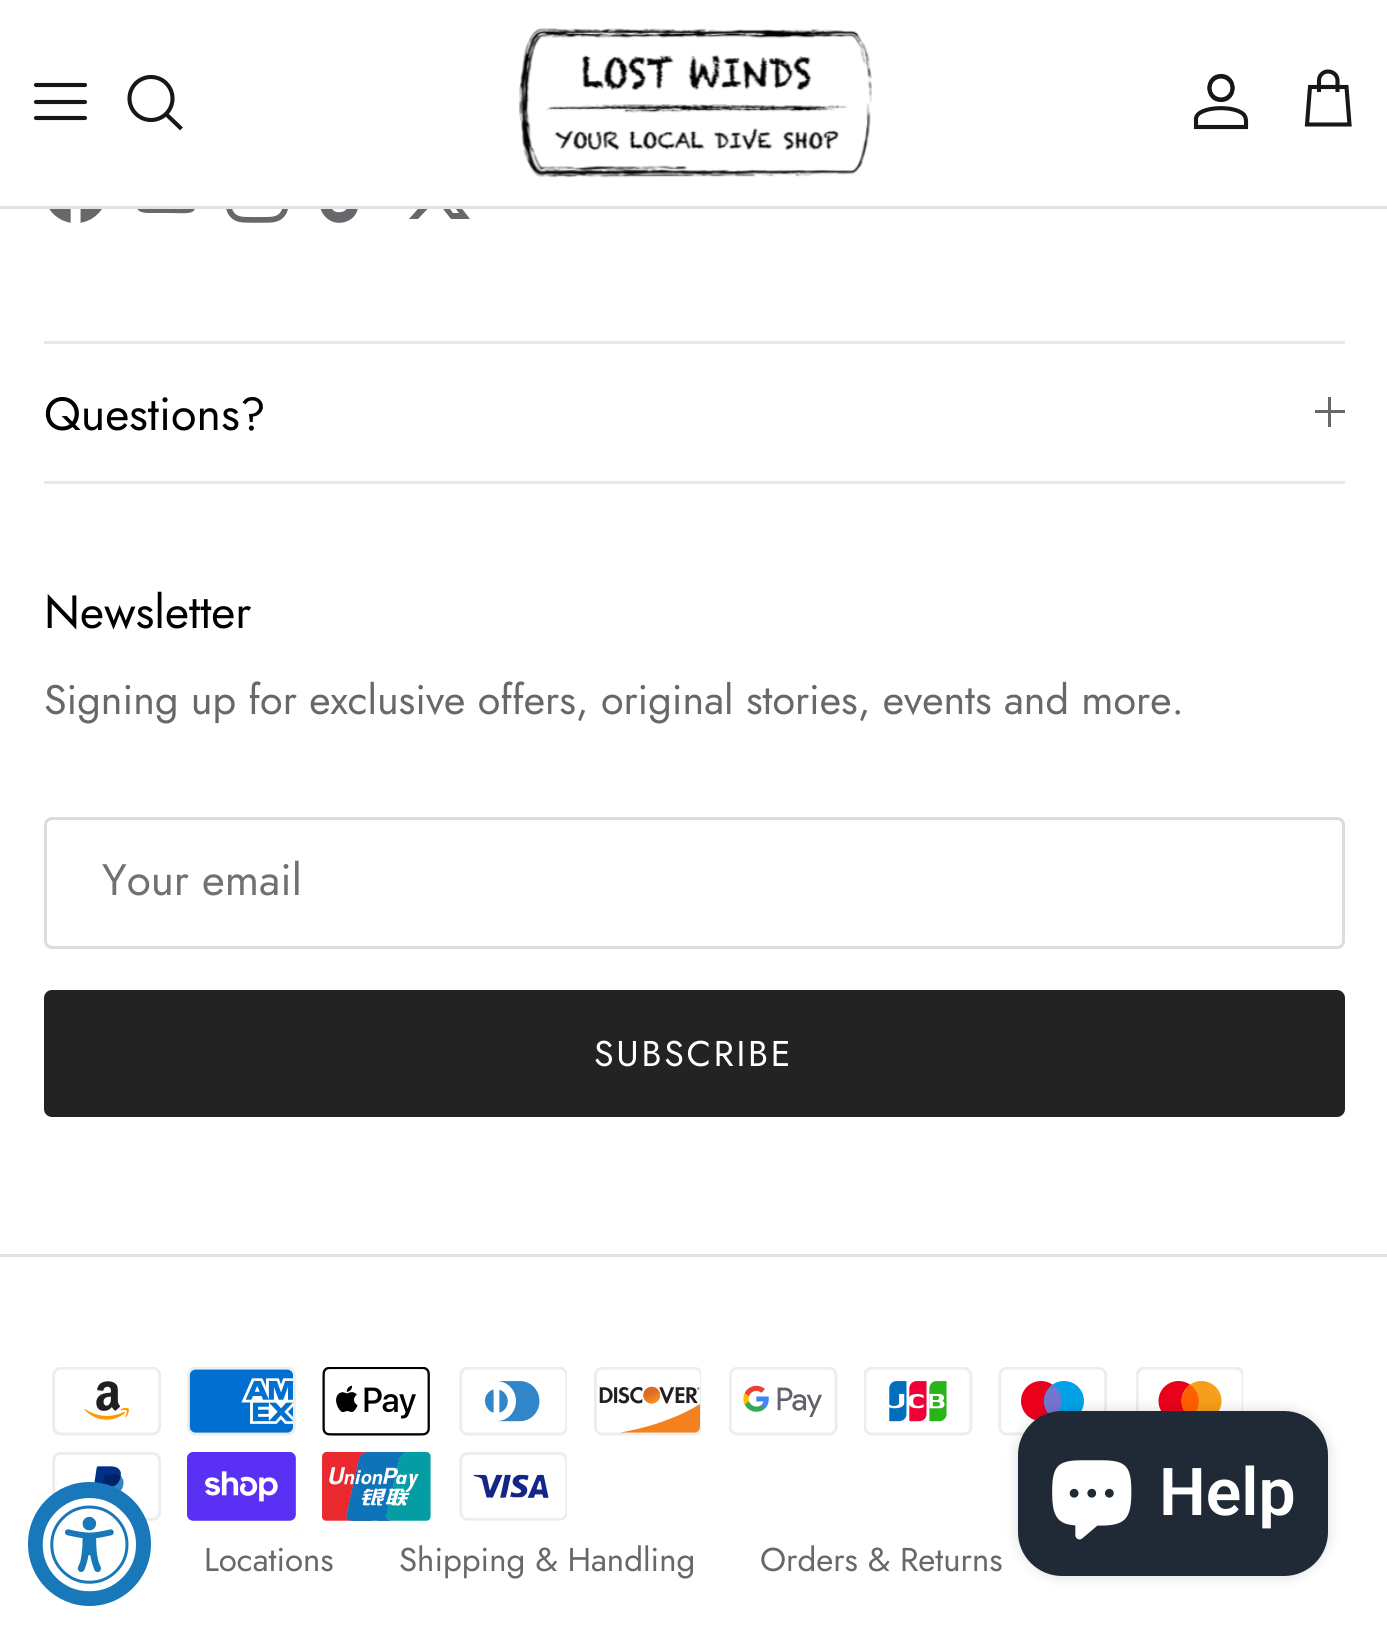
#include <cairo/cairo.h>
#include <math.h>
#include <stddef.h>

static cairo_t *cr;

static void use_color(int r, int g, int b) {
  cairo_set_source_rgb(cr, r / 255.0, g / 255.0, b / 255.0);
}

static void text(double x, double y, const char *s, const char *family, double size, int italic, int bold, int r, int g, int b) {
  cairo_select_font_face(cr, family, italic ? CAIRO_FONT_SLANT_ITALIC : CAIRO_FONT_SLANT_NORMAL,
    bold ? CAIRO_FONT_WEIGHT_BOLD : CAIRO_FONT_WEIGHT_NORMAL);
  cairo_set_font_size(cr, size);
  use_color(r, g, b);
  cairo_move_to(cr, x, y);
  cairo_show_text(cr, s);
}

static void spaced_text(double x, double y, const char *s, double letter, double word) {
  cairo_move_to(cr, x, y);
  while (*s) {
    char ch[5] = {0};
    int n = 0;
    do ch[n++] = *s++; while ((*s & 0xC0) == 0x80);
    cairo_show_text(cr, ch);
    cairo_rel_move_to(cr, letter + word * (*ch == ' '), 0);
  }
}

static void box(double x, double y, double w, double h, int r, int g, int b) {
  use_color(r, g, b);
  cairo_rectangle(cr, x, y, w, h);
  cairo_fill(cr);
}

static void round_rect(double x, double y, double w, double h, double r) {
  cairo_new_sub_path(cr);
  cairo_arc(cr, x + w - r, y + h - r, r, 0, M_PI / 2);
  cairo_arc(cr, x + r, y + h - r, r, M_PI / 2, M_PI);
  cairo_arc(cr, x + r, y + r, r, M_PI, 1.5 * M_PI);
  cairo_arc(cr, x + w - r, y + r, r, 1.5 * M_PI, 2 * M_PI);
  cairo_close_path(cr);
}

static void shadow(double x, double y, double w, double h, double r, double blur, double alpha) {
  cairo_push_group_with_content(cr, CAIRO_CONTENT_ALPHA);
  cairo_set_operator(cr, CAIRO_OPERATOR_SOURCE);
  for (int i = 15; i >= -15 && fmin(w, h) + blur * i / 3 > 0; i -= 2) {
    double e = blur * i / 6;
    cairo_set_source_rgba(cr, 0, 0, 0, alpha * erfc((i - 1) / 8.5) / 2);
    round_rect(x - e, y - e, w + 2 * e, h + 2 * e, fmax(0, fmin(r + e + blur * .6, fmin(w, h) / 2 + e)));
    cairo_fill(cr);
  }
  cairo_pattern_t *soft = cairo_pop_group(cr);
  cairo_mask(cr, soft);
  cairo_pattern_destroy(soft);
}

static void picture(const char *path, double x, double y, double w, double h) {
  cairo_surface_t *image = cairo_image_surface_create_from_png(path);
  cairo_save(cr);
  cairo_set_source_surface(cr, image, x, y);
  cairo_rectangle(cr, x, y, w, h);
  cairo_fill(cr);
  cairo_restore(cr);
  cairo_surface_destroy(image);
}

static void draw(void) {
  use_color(255, 255, 255);
  cairo_paint(cr);
  use_color(103, 104, 105);
  cairo_set_fill_rule(cr, CAIRO_FILL_RULE_EVEN_ODD);
  cairo_new_path(cr);
  cairo_move_to(cr, 160, 199);
  cairo_line_to(cr, 160, 181);
  cairo_line_to(cr, 177, 190);
  cairo_close_path(cr);
  cairo_move_to(cr, 197, 178);
  cairo_curve_to(cr, 196, 169, 189, 169, 181, 169);
  cairo_line_to(cr, 162, 169);
  cairo_curve_to(cr, 157, 169, 145, 168, 141, 170);
  cairo_curve_to(cr, 132, 174, 134, 197, 135, 204);
  cairo_curve_to(cr, 137, 214, 146, 213, 154, 213);
  cairo_line_to(cr, 171, 213);
  cairo_curve_to(cr, 176, 213, 188, 214, 192, 212);
  cairo_curve_to(cr, 200, 208, 198, 185, 197, 178);
  cairo_close_path(cr);
  cairo_fill(cr);
  cairo_set_fill_rule(cr, CAIRO_FILL_RULE_WINDING);
  cairo_new_path(cr);
  cairo_move_to(cr, 348, 160);
  cairo_line_to(cr, 359, 160);
  cairo_curve_to(cr, 359, 169, 366, 174, 375, 175);
  cairo_line_to(cr, 375, 186);
  cairo_curve_to(cr, 369, 186, 364, 184, 359, 181);
  cairo_line_to(cr, 359, 195);
  cairo_curve_to(cr, 359, 207, 358, 218, 345, 222);
  cairo_curve_to(cr, 323, 228, 310, 199, 328, 187);
  cairo_curve_to(cr, 332, 184, 338, 182, 343, 183);
  cairo_line_to(cr, 342, 195);
  cairo_curve_to(cr, 328, 190, 326, 215, 341, 212);
  cairo_curve_to(cr, 351, 211, 348, 198, 348, 191);
  cairo_close_path(cr);
  cairo_fill(cr);
  cairo_new_path(cr);
  cairo_move_to(cr, 457, 163);
  cairo_line_to(cr, 466, 163);
  cairo_line_to(cr, 445, 187);
  cairo_line_to(cr, 470, 219);
  cairo_line_to(cr, 451, 219);
  cairo_line_to(cr, 436, 200);
  cairo_line_to(cr, 418, 219);
  cairo_line_to(cr, 409, 219);
  cairo_line_to(cr, 431, 194);
  cairo_line_to(cr, 408, 163);
  cairo_line_to(cr, 427, 163);
  cairo_line_to(cr, 441, 181);
  cairo_close_path(cr);
  cairo_move_to(cr, 453, 213);
  cairo_line_to(cr, 459, 213);
  cairo_line_to(cr, 424, 168);
  cairo_line_to(cr, 419, 168);
  cairo_close_path(cr);
  cairo_fill(cr);
  box(134, 160, 332, 46, 255, 255, 255);
  box(0, 206, 1387, 3, 223, 227, 232);
  cairo_new_path(cr);
  cairo_move_to(cr, 36, 102);
  cairo_line_to(cr, 85, 102);
  cairo_move_to(cr, 36, 85);
  cairo_line_to(cr, 85, 85);
  cairo_move_to(cr, 36, 118);
  cairo_line_to(cr, 85, 118);
  use_color(23, 23, 23);
  cairo_set_line_width(cr, 4.1);
  cairo_set_line_cap(cr, CAIRO_LINE_CAP_ROUND);
  cairo_set_line_join(cr, CAIRO_LINE_JOIN_ROUND);
  cairo_stroke(cr);
  cairo_arc(cr, 151, 98.5, 21.5, 0, 2 * M_PI);
  cairo_set_line_cap(cr, CAIRO_LINE_CAP_BUTT);
  cairo_set_line_join(cr, CAIRO_LINE_JOIN_MITER);
  cairo_stroke(cr);
  cairo_new_path(cr);
  cairo_move_to(cr, 167.5, 115.5);
  cairo_line_to(cr, 180, 127.5);
  cairo_set_line_cap(cr, CAIRO_LINE_CAP_SQUARE);
  cairo_stroke(cr);
  picture("img_01.png", 518, 28, 354, 150);
  cairo_set_fill_rule(cr, CAIRO_FILL_RULE_EVEN_ODD);
  cairo_new_path(cr);
  cairo_move_to(cr, 1221, 74);
  cairo_curve_to(cr, 1239, 74, 1239, 102, 1221, 102);
  cairo_curve_to(cr, 1203, 102, 1203, 74, 1221, 74);
  cairo_close_path(cr);
  cairo_move_to(cr, 1221, 78);
  cairo_curve_to(cr, 1208, 78, 1208, 98, 1221, 98);
  cairo_curve_to(cr, 1234, 98, 1234, 78, 1221, 78);
  cairo_close_path(cr);
  cairo_fill(cr);
  cairo_arc(cr, 1221, 88, 11.5, 0, 2 * M_PI);
  cairo_set_line_cap(cr, CAIRO_LINE_CAP_BUTT);
  cairo_stroke(cr);
  cairo_new_path(cr);
  cairo_move_to(cr, 1196, 119);
  cairo_curve_to(cr, 1196, 105.5, 1239.5, 104.5, 1245, 116.5);
  cairo_curve_to(cr, 1246.5, 119.5, 1246, 124, 1246, 127);
  cairo_line_to(cr, 1196, 127);
  cairo_close_path(cr);
  cairo_stroke(cr);
  cairo_new_path(cr);
  cairo_move_to(cr, 1337.5, 92);
  cairo_line_to(cr, 1337.5, 80.5);
  cairo_curve_to(cr, 1337.5, 75.5, 1333.5, 71.5, 1328, 71.5);
  cairo_curve_to(cr, 1323, 71.5, 1319, 75.5, 1319, 80.5);
  cairo_line_to(cr, 1319, 92);
  cairo_move_to(cr, 1310, 87);
  cairo_line_to(cr, 1346.5, 87);
  cairo_line_to(cr, 1349.5, 124.5);
  cairo_line_to(cr, 1307, 124.5);
  cairo_close_path(cr);
  cairo_stroke(cr);
  picture("img_02.png", 49, 209, 53, 14);
  picture("img_03.png", 226, 209, 62, 14);
  box(44, 341, 1301, 3, 232, 232, 233);
  box(44, 481, 1301, 3, 232, 232, 233);
  box(1328, 397, 3, 30, 103, 104, 105);
  box(1315, 410, 30, 3, 103, 104, 105);
  round_rect(45.5, 818.5, 1298, 129, 6.5);
  use_color(219, 220, 220);
  cairo_set_line_width(cr, 3);
  cairo_stroke(cr);
  use_color(35, 35, 35);
  round_rect(45.5, 991.5, 1298, 124, 6.5);
  cairo_fill_preserve(cr);
  cairo_stroke(cr);
  box(0, 1254, 1387, 3, 224, 224, 224);
  picture("img_04.png", 52, 1367, 109, 69);
  picture("img_05.png", 187, 1367, 109, 69);
  picture("img_06.png", 322, 1367, 108, 69);
  picture("img_07.png", 459, 1367, 108, 69);
  picture("img_08.png", 594, 1367, 107, 69);
  picture("img_09.png", 729, 1367, 109, 69);
  picture("img_10.png", 864, 1367, 109, 69);
  picture("img_11.png", 998, 1367, 109, 69);
  picture("img_12.png", 1136, 1367, 107, 44);
  picture("img_13.png", 52, 1452, 109, 69);
  picture("img_14.png", 187, 1452, 109, 69);
  picture("img_15.png", 322, 1452, 109, 69);
  picture("img_16.png", 459, 1452, 108, 69);
  use_color(0, 0, 0);
  shadow(1018, 1411, 310, 165, 44, 7, 0.15);
  use_color(32, 42, 54);
  round_rect(1018, 1411, 310, 165, 44);
  cairo_fill(cr);
  picture("img_17.png", 1052, 1460, 80, 80);
  use_color(24, 120, 185);
  round_rect(28, 1482, 123, 124, 61.5);
  cairo_fill(cr);
  picture("img_18.png", 42, 1498, 94, 94);
  text(44, 430, "Questions?", "Jost", 46.5, 0, 0, 0, 0, 0);
  text(44, 628, "Newsletter", "Jost", 46.5, 0, 0, 0, 0, 0);
  text(44, 714, "Signing up for exclusive offers, original stories, events and more.", "Jost", 41.25, 0, 0, 103, 104, 105);
  text(102, 895, "Your email", "Jost", 44, 0, 0, 112, 113, 115);
  cairo_set_font_size(cr, 35.75);
  use_color(255, 255, 255);
  spaced_text(594, 1066, "SUBSCRIBE", 2.75, 0);
  text(204, 1571, "Locations", "Jost", 33, 0, 0, 103, 104, 105);
  text(399, 1571, "Shipping & Handling", "Jost", 33, 0, 0, 103, 104, 105);
  text(760, 1571, "Orders & Returns", "Jost", 33, 0, 0, 103, 104, 105);
  text(1159, 1515, "Help", "Roboto SemiBold", 66, 0, 0, 255, 255, 255);
}

int main(void) {
  cairo_surface_t *surface = cairo_image_surface_create(CAIRO_FORMAT_RGB24, 1387, 1632);
  cr = cairo_create(surface);
  cairo_font_options_t *options = cairo_font_options_create();
  cairo_font_options_set_hint_metrics(options, CAIRO_HINT_METRICS_OFF);
  cairo_font_options_set_hint_style(options, CAIRO_HINT_STYLE_NONE);
  cairo_set_font_options(cr, options);
  cairo_set_miter_limit(cr, 4);
  draw();
  cairo_surface_write_to_png(surface, "out.png");
  cairo_font_options_destroy(options);
  cairo_destroy(cr);
  cairo_surface_destroy(surface);
  return 0;
}
